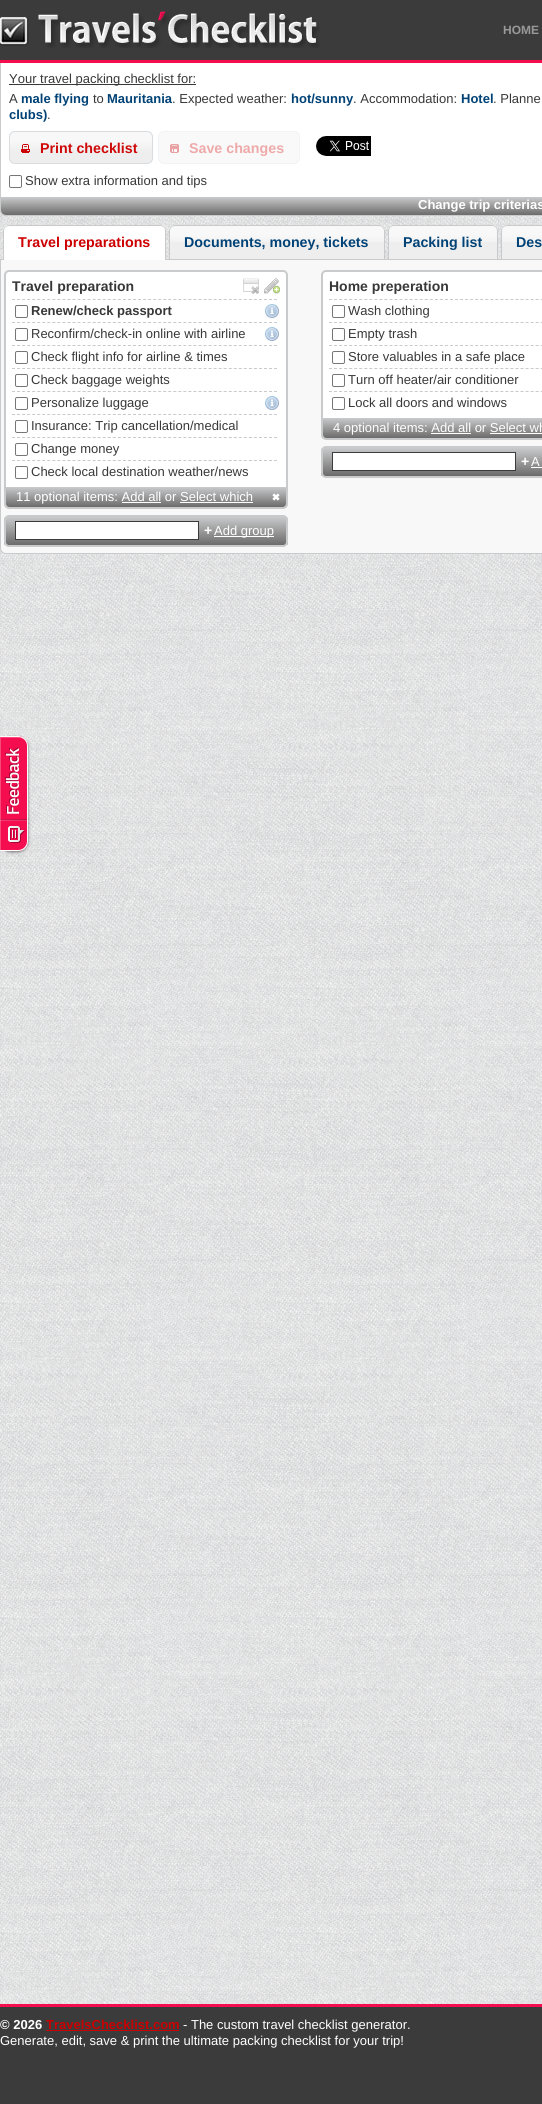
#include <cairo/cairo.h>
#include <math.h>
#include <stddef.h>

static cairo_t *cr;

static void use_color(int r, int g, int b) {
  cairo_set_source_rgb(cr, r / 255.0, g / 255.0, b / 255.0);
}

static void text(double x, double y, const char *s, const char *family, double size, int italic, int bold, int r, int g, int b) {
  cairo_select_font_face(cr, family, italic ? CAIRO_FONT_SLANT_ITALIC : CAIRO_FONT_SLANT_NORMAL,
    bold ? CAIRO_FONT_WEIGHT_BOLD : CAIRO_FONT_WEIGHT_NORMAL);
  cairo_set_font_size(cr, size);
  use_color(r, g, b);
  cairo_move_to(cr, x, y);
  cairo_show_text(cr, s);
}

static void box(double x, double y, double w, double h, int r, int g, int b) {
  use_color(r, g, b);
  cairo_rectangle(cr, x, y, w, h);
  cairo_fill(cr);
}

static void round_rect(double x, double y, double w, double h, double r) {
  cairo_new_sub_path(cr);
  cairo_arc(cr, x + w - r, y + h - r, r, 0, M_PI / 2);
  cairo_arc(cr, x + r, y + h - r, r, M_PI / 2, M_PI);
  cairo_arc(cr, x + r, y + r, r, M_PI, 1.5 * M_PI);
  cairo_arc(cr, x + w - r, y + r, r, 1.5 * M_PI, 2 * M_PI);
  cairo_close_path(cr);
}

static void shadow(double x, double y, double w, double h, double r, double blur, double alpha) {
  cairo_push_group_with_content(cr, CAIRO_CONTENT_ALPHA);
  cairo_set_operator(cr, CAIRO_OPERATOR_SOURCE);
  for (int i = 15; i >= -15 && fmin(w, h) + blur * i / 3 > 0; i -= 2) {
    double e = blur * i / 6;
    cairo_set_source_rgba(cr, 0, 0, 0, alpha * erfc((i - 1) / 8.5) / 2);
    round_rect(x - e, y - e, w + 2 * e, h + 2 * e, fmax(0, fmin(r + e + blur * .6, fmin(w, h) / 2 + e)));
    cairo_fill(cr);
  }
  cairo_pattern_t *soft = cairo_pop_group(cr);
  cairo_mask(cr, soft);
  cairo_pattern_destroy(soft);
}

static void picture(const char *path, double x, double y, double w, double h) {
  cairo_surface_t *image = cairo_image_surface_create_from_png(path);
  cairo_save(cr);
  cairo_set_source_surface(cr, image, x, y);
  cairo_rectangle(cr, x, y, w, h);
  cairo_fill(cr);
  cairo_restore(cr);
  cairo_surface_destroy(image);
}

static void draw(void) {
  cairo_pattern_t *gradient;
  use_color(255, 255, 255);
  cairo_paint(cr);
  picture("img_01.png", 0, 211, 542, 1793);
  box(0, 0, 542, 60, 59, 59, 59);
  box(0, 60, 542, 3, 244, 13, 79);
  picture("img_02.png", 0, 11, 320, 37);
  use_color(255, 255, 255);
  cairo_new_path(cr);
  cairo_move_to(cr, 0, 63);
  cairo_line_to(cr, 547, 63);
  cairo_line_to(cr, 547, 211);
  cairo_curve_to(cr, 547, 214, 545, 216, 542, 216);
  cairo_line_to(cr, 5, 216);
  cairo_curve_to(cr, 2, 216, 0, 214, 0, 211);
  cairo_close_path(cr);
  cairo_fill(cr);
  use_color(201, 202, 203);
  cairo_set_fill_rule(cr, CAIRO_FILL_RULE_EVEN_ODD);
  cairo_new_path(cr);
  cairo_move_to(cr, 0, 63);
  cairo_line_to(cr, 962, 63);
  cairo_line_to(cr, 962, 211);
  cairo_curve_to(cr, 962, 214, 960, 216, 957, 216);
  cairo_line_to(cr, 5, 216);
  cairo_curve_to(cr, 2, 216, 0, 214, 0, 211);
  cairo_close_path(cr);
  cairo_move_to(cr, 1, 63);
  cairo_line_to(cr, 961, 63);
  cairo_line_to(cr, 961, 211);
  cairo_curve_to(cr, 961, 213, 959, 215, 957, 215);
  cairo_line_to(cr, 5, 215);
  cairo_curve_to(cr, 3, 215, 1, 213, 1, 211);
  cairo_close_path(cr);
  cairo_fill(cr);
  box(9, 84, 187, 1, 56, 56, 56);
  picture("img_03.png", 9, 131, 144, 32);
  round_rect(9.5, 131.5, 143, 32, 5.5);
  use_color(216, 220, 223);
  cairo_set_line_width(cr, 1);
  cairo_stroke(cr);
  picture("img_04.png", 21, 144, 9, 9);
  use_color(249, 249, 249);
  round_rect(158.5, 131.5, 141, 32, 5.5);
  cairo_fill_preserve(cr);
  use_color(241, 243, 244);
  cairo_stroke(cr);
  picture("img_05.png", 170, 144, 9, 9);
  picture("img_06.png", 316, 136, 55, 20);
  round_rect(9.5, 175.5, 12, 12, 1.5);
  use_color(118, 118, 118);
  cairo_stroke(cr);
  gradient = cairo_pattern_create_linear(1, 197, 1, 215);
  cairo_pattern_add_color_stop_rgba(gradient, 0, 0.788, 0.792, 0.796, 1);
  cairo_pattern_add_color_stop_rgba(gradient, 1, 0.424, 0.42, 0.42, 1);
  cairo_set_source(cr, gradient);
  cairo_pattern_destroy(gradient);
  cairo_new_path(cr);
  cairo_move_to(cr, 1, 197);
  cairo_line_to(cr, 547, 197);
  cairo_line_to(cr, 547, 210);
  cairo_curve_to(cr, 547, 213, 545, 215, 542, 215);
  cairo_line_to(cr, 6, 215);
  cairo_curve_to(cr, 3, 215, 1, 213, 1, 210);
  cairo_close_path(cr);
  cairo_fill(cr);
  use_color(248, 248, 248);
  cairo_new_path(cr);
  cairo_move_to(cr, 0.5, 259.5);
  cairo_line_to(cr, 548.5, 259.5);
  cairo_line_to(cr, 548.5, 548);
  cairo_curve_to(cr, 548.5, 551, 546, 553.5, 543, 553.5);
  cairo_line_to(cr, 6, 553.5);
  cairo_curve_to(cr, 3, 553.5, 0.5, 551, 0.5, 548);
  cairo_close_path(cr);
  cairo_fill_preserve(cr);
  use_color(201, 202, 203);
  cairo_stroke(cr);
  use_color(255, 255, 255);
  cairo_new_path(cr);
  cairo_move_to(cr, 9, 225);
  cairo_line_to(cr, 160, 225);
  cairo_curve_to(cr, 163.5, 225, 166, 227.5, 166, 231);
  cairo_line_to(cr, 166, 260);
  cairo_line_to(cr, 3, 260);
  cairo_line_to(cr, 3, 231);
  cairo_curve_to(cr, 3, 227.5, 5.5, 225, 9, 225);
  cairo_close_path(cr);
  cairo_fill(cr);
  picture("img_07.png", 3, 225, 163, 5);
  use_color(201, 202, 203);
  cairo_new_path(cr);
  cairo_move_to(cr, 9, 225);
  cairo_line_to(cr, 160, 225);
  cairo_curve_to(cr, 163, 225, 166, 228, 166, 231);
  cairo_line_to(cr, 166, 260);
  cairo_line_to(cr, 3, 260);
  cairo_line_to(cr, 3, 231);
  cairo_curve_to(cr, 3, 228, 6, 225, 9, 225);
  cairo_close_path(cr);
  cairo_move_to(cr, 9, 226);
  cairo_line_to(cr, 160, 226);
  cairo_curve_to(cr, 163, 226, 165, 228, 165, 231);
  cairo_line_to(cr, 165, 260);
  cairo_line_to(cr, 4, 260);
  cairo_line_to(cr, 4, 231);
  cairo_curve_to(cr, 4, 228, 6, 226, 9, 226);
  cairo_close_path(cr);
  cairo_fill(cr);
  use_color(238, 238, 238);
  cairo_new_path(cr);
  cairo_move_to(cr, 175, 225);
  cairo_line_to(cr, 379, 225);
  cairo_curve_to(cr, 382.5, 225, 385, 227.5, 385, 231);
  cairo_line_to(cr, 385, 259);
  cairo_line_to(cr, 169, 259);
  cairo_line_to(cr, 169, 231);
  cairo_curve_to(cr, 169, 227.5, 171.5, 225, 175, 225);
  cairo_close_path(cr);
  cairo_fill(cr);
  picture("img_08.png", 169, 225, 216, 17);
  use_color(201, 202, 203);
  cairo_new_path(cr);
  cairo_move_to(cr, 175, 225);
  cairo_line_to(cr, 379, 225);
  cairo_curve_to(cr, 382, 225, 385, 228, 385, 231);
  cairo_line_to(cr, 385, 259);
  cairo_line_to(cr, 169, 259);
  cairo_line_to(cr, 169, 231);
  cairo_curve_to(cr, 169, 228, 172, 225, 175, 225);
  cairo_close_path(cr);
  cairo_move_to(cr, 175, 226);
  cairo_line_to(cr, 379, 226);
  cairo_curve_to(cr, 382, 226, 384, 228, 384, 231);
  cairo_line_to(cr, 384, 259);
  cairo_line_to(cr, 170, 259);
  cairo_line_to(cr, 170, 231);
  cairo_curve_to(cr, 170, 228, 172, 226, 175, 226);
  cairo_close_path(cr);
  cairo_fill(cr);
  use_color(238, 238, 238);
  cairo_new_path(cr);
  cairo_move_to(cr, 394, 225);
  cairo_line_to(cr, 492, 225);
  cairo_curve_to(cr, 495.5, 225, 498, 227.5, 498, 231);
  cairo_line_to(cr, 498, 259);
  cairo_line_to(cr, 388, 259);
  cairo_line_to(cr, 388, 231);
  cairo_curve_to(cr, 388, 227.5, 390.5, 225, 394, 225);
  cairo_close_path(cr);
  cairo_fill(cr);
  picture("img_09.png", 388, 225, 110, 17);
  use_color(201, 202, 203);
  cairo_new_path(cr);
  cairo_move_to(cr, 394, 225);
  cairo_line_to(cr, 492, 225);
  cairo_curve_to(cr, 495, 225, 498, 228, 498, 231);
  cairo_line_to(cr, 498, 259);
  cairo_line_to(cr, 388, 259);
  cairo_line_to(cr, 388, 231);
  cairo_curve_to(cr, 388, 228, 391, 225, 394, 225);
  cairo_close_path(cr);
  cairo_move_to(cr, 394, 226);
  cairo_line_to(cr, 492, 226);
  cairo_curve_to(cr, 495, 226, 497, 228, 497, 231);
  cairo_line_to(cr, 497, 259);
  cairo_line_to(cr, 389, 259);
  cairo_line_to(cr, 389, 231);
  cairo_curve_to(cr, 389, 228, 391, 226, 394, 226);
  cairo_close_path(cr);
  cairo_fill(cr);
  use_color(238, 238, 238);
  cairo_new_path(cr);
  cairo_move_to(cr, 507, 225);
  cairo_line_to(cr, 542, 225);
  cairo_curve_to(cr, 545.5, 225, 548, 227.5, 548, 231);
  cairo_line_to(cr, 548, 259);
  cairo_line_to(cr, 501, 259);
  cairo_line_to(cr, 501, 231);
  cairo_curve_to(cr, 501, 227.5, 503.5, 225, 507, 225);
  cairo_close_path(cr);
  cairo_fill(cr);
  picture("img_10.png", 501, 225, 41, 17);
  use_color(201, 202, 203);
  cairo_new_path(cr);
  cairo_move_to(cr, 507, 225);
  cairo_line_to(cr, 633, 225);
  cairo_curve_to(cr, 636, 225, 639, 228, 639, 231);
  cairo_line_to(cr, 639, 259);
  cairo_line_to(cr, 501, 259);
  cairo_line_to(cr, 501, 231);
  cairo_curve_to(cr, 501, 228, 504, 225, 507, 225);
  cairo_close_path(cr);
  cairo_move_to(cr, 507, 226);
  cairo_line_to(cr, 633, 226);
  cairo_curve_to(cr, 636, 226, 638, 228, 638, 231);
  cairo_line_to(cr, 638, 259);
  cairo_line_to(cr, 502, 259);
  cairo_line_to(cr, 502, 231);
  cairo_curve_to(cr, 502, 228, 504, 226, 507, 226);
  cairo_close_path(cr);
  cairo_fill(cr);
  use_color(255, 255, 255);
  round_rect(5, 271, 282, 237, 4);
  cairo_fill_preserve(cr);
  use_color(201, 202, 203);
  cairo_set_line_width(cr, 2);
  cairo_stroke(cr);
  picture("img_11.png", 243, 278, 16, 16);
  picture("img_12.png", 264, 278, 16, 16);
  cairo_new_path(cr);
  cairo_move_to(cr, 12, 299.5);
  cairo_line_to(cr, 277, 299.5);
  cairo_set_line_width(cr, 1);
  cairo_set_dash(cr, (double[]){3, 2.04}, 2, 0);
  cairo_stroke(cr);
  round_rect(15.5, 305.5, 12, 12, 1.5);
  use_color(118, 118, 118);
  cairo_set_dash(cr, NULL, 0, 0);
  cairo_stroke(cr);
  picture("img_13.png", 265, 304, 14, 14);
  cairo_new_path(cr);
  cairo_move_to(cr, 12, 322.5);
  cairo_line_to(cr, 277, 322.5);
  use_color(201, 202, 203);
  cairo_set_dash(cr, (double[]){3, 2.04}, 2, 0);
  cairo_stroke(cr);
  round_rect(15.5, 328.5, 12, 12, 1.5);
  use_color(118, 118, 118);
  cairo_set_dash(cr, NULL, 0, 0);
  cairo_stroke(cr);
  picture("img_13.png", 265, 327, 14, 14);
  cairo_new_path(cr);
  cairo_move_to(cr, 12, 345.5);
  cairo_line_to(cr, 277, 345.5);
  use_color(201, 202, 203);
  cairo_set_dash(cr, (double[]){3, 2.04}, 2, 0);
  cairo_stroke(cr);
  round_rect(15.5, 351.5, 12, 12, 1.5);
  use_color(118, 118, 118);
  cairo_set_dash(cr, NULL, 0, 0);
  cairo_stroke(cr);
  cairo_new_path(cr);
  cairo_move_to(cr, 12, 368.5);
  cairo_line_to(cr, 277, 368.5);
  use_color(201, 202, 203);
  cairo_set_dash(cr, (double[]){3, 2.04}, 2, 0);
  cairo_stroke(cr);
  round_rect(15.5, 374.5, 12, 12, 1.5);
  use_color(118, 118, 118);
  cairo_set_dash(cr, NULL, 0, 0);
  cairo_stroke(cr);
  cairo_new_path(cr);
  cairo_move_to(cr, 12, 391.5);
  cairo_line_to(cr, 277, 391.5);
  use_color(201, 202, 203);
  cairo_set_dash(cr, (double[]){3, 2.04}, 2, 0);
  cairo_stroke(cr);
  round_rect(15.5, 397.5, 12, 12, 1.5);
  use_color(118, 118, 118);
  cairo_set_dash(cr, NULL, 0, 0);
  cairo_stroke(cr);
  picture("img_13.png", 265, 396, 14, 14);
  cairo_new_path(cr);
  cairo_move_to(cr, 12, 414.5);
  cairo_line_to(cr, 277, 414.5);
  use_color(201, 202, 203);
  cairo_set_dash(cr, (double[]){3, 2.04}, 2, 0);
  cairo_stroke(cr);
  round_rect(15.5, 420.5, 12, 12, 1.5);
  use_color(118, 118, 118);
  cairo_set_dash(cr, NULL, 0, 0);
  cairo_stroke(cr);
  cairo_new_path(cr);
  cairo_move_to(cr, 12, 437.5);
  cairo_line_to(cr, 277, 437.5);
  use_color(201, 202, 203);
  cairo_set_dash(cr, (double[]){3, 2.04}, 2, 0);
  cairo_stroke(cr);
  round_rect(15.5, 443.5, 12, 12, 1.5);
  use_color(118, 118, 118);
  cairo_set_dash(cr, NULL, 0, 0);
  cairo_stroke(cr);
  cairo_new_path(cr);
  cairo_move_to(cr, 12, 460.5);
  cairo_line_to(cr, 277, 460.5);
  use_color(201, 202, 203);
  cairo_set_dash(cr, (double[]){3, 2.04}, 2, 0);
  cairo_stroke(cr);
  round_rect(15.5, 466.5, 12, 12, 1.5);
  use_color(118, 118, 118);
  cairo_set_dash(cr, NULL, 0, 0);
  cairo_stroke(cr);
  gradient = cairo_pattern_create_linear(6, 487, 6, 507);
  cairo_pattern_add_color_stop_rgba(gradient, 0, 0.788, 0.792, 0.796, 1);
  cairo_pattern_add_color_stop_rgba(gradient, 1, 0.424, 0.42, 0.42, 1);
  cairo_set_source(cr, gradient);
  cairo_pattern_destroy(gradient);
  cairo_new_path(cr);
  cairo_move_to(cr, 6, 487);
  cairo_line_to(cr, 286, 487);
  cairo_line_to(cr, 286, 504);
  cairo_curve_to(cr, 286, 505.5, 284.5, 507, 283, 507);
  cairo_line_to(cr, 9, 507);
  cairo_curve_to(cr, 7.5, 507, 6, 505.5, 6, 504);
  cairo_close_path(cr);
  cairo_fill(cr);
  picture("img_14.png", 272, 493, 8, 8);
  box(122, 502, 39, 1, 255, 255, 255);
  box(180, 502, 73, 1, 255, 255, 255);
  cairo_save(cr);
  cairo_set_fill_rule(cr, CAIRO_FILL_RULE_WINDING);
  round_rect(4, 515, 284, 32, 5);
  cairo_clip(cr);
  gradient = cairo_pattern_create_linear(6, 517, 6, 545);
  cairo_pattern_add_color_stop_rgba(gradient, 0, 0.788, 0.792, 0.796, 1);
  cairo_pattern_add_color_stop_rgba(gradient, 1, 0.424, 0.42, 0.42, 1);
  cairo_set_source(cr, gradient);
  cairo_pattern_destroy(gradient);
  cairo_rectangle(cr, 4, 517, 284, 28);
  cairo_fill(cr);
  cairo_restore(cr);
  round_rect(5, 516, 282, 30, 4);
  use_color(201, 202, 203);
  cairo_set_line_width(cr, 2);
  cairo_stroke(cr);
  use_color(255, 255, 255);
  cairo_rectangle(cr, 15.5, 521.5, 183, 18);
  cairo_fill_preserve(cr);
  use_color(59, 59, 59);
  cairo_set_line_width(cr, 1);
  cairo_stroke(cr);
  box(214, 536, 60, 1, 255, 255, 255);
  round_rect(322, 271, 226, 168, 4);
  cairo_fill_preserve(cr);
  use_color(201, 202, 203);
  cairo_set_line_width(cr, 2);
  cairo_stroke(cr);
  cairo_new_path(cr);
  cairo_move_to(cr, 329, 299.5);
  cairo_line_to(cr, 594, 299.5);
  cairo_set_line_width(cr, 1);
  cairo_set_dash(cr, (double[]){3, 2.04}, 2, 0);
  cairo_stroke(cr);
  round_rect(332.5, 305.5, 12, 12, 1.5);
  use_color(118, 118, 118);
  cairo_set_dash(cr, NULL, 0, 0);
  cairo_stroke(cr);
  cairo_new_path(cr);
  cairo_move_to(cr, 329, 322.5);
  cairo_line_to(cr, 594, 322.5);
  use_color(201, 202, 203);
  cairo_set_dash(cr, (double[]){3, 2.04}, 2, 0);
  cairo_stroke(cr);
  round_rect(332.5, 328.5, 12, 12, 1.5);
  use_color(118, 118, 118);
  cairo_set_dash(cr, NULL, 0, 0);
  cairo_stroke(cr);
  cairo_new_path(cr);
  cairo_move_to(cr, 329, 345.5);
  cairo_line_to(cr, 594, 345.5);
  use_color(201, 202, 203);
  cairo_set_dash(cr, (double[]){3, 2.04}, 2, 0);
  cairo_stroke(cr);
  round_rect(332.5, 351.5, 12, 12, 1.5);
  use_color(118, 118, 118);
  cairo_set_dash(cr, NULL, 0, 0);
  cairo_stroke(cr);
  cairo_new_path(cr);
  cairo_move_to(cr, 329, 368.5);
  cairo_line_to(cr, 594, 368.5);
  use_color(201, 202, 203);
  cairo_set_dash(cr, (double[]){3, 2.04}, 2, 0);
  cairo_stroke(cr);
  round_rect(332.5, 374.5, 12, 12, 1.5);
  use_color(118, 118, 118);
  cairo_set_dash(cr, NULL, 0, 0);
  cairo_stroke(cr);
  cairo_new_path(cr);
  cairo_move_to(cr, 329, 391.5);
  cairo_line_to(cr, 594, 391.5);
  use_color(201, 202, 203);
  cairo_set_dash(cr, (double[]){3, 2.04}, 2, 0);
  cairo_stroke(cr);
  round_rect(332.5, 397.5, 12, 12, 1.5);
  use_color(118, 118, 118);
  cairo_set_dash(cr, NULL, 0, 0);
  cairo_stroke(cr);
  gradient = cairo_pattern_create_linear(323, 418, 323, 438);
  cairo_pattern_add_color_stop_rgba(gradient, 0, 0.788, 0.792, 0.796, 1);
  cairo_pattern_add_color_stop_rgba(gradient, 1, 0.424, 0.42, 0.42, 1);
  cairo_set_source(cr, gradient);
  cairo_pattern_destroy(gradient);
  cairo_new_path(cr);
  cairo_move_to(cr, 323, 418);
  cairo_line_to(cr, 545, 418);
  cairo_line_to(cr, 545, 435);
  cairo_curve_to(cr, 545, 436.5, 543.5, 438, 542, 438);
  cairo_line_to(cr, 326, 438);
  cairo_curve_to(cr, 324.5, 438, 323, 436.5, 323, 435);
  cairo_close_path(cr);
  cairo_fill(cr);
  box(431, 433, 40, 1, 255, 255, 255);
  box(490, 433, 52, 1, 255, 255, 255);
  cairo_save(cr);
  cairo_set_fill_rule(cr, CAIRO_FILL_RULE_WINDING);
  round_rect(321, 446, 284, 32, 5);
  cairo_clip(cr);
  gradient = cairo_pattern_create_linear(323, 448, 323, 476);
  cairo_pattern_add_color_stop_rgba(gradient, 0, 0.788, 0.792, 0.796, 1);
  cairo_pattern_add_color_stop_rgba(gradient, 1, 0.424, 0.42, 0.42, 1);
  cairo_set_source(cr, gradient);
  cairo_pattern_destroy(gradient);
  cairo_rectangle(cr, 321, 448, 221, 28);
  cairo_fill(cr);
  cairo_restore(cr);
  round_rect(322, 447, 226, 30, 4);
  use_color(201, 202, 203);
  cairo_set_line_width(cr, 2);
  cairo_stroke(cr);
  use_color(255, 255, 255);
  cairo_rectangle(cr, 332.5, 452.5, 183, 18);
  cairo_fill_preserve(cr);
  use_color(59, 59, 59);
  cairo_set_line_width(cr, 1);
  cairo_stroke(cr);
  box(531, 467, 11, 1, 255, 255, 255);
  use_color(0, 0, 0);
  shadow(0, 737, 28, 115, 10, 1.5, 0.5);
  use_color(244, 13, 79);
  cairo_new_path(cr);
  cairo_move_to(cr, 0, 736);
  cairo_line_to(cr, 18, 736);
  cairo_curve_to(cr, 23.5, 736, 28, 740.5, 28, 746);
  cairo_line_to(cr, 28, 841);
  cairo_curve_to(cr, 28, 846.5, 23.5, 851, 18, 851);
  cairo_line_to(cr, 0, 851);
  cairo_close_path(cr);
  cairo_fill(cr);
  use_color(247, 73, 122);
  cairo_set_fill_rule(cr, CAIRO_FILL_RULE_WINDING);
  cairo_new_path(cr);
  cairo_move_to(cr, 1, 738);
  cairo_line_to(cr, 19, 738);
  cairo_curve_to(cr, 21, 738, 23, 739, 25, 740);
  cairo_curve_to(cr, 23, 738, 21, 737, 18, 737);
  cairo_line_to(cr, 0, 737);
  cairo_line_to(cr, 0, 850);
  cairo_line_to(cr, 1, 850);
  cairo_close_path(cr);
  cairo_fill(cr);
  use_color(255, 255, 255);
  cairo_set_fill_rule(cr, CAIRO_FILL_RULE_EVEN_ODD);
  cairo_new_path(cr);
  cairo_move_to(cr, 0, 736);
  cairo_line_to(cr, 18, 736);
  cairo_curve_to(cr, 24, 736, 28, 740, 28, 746);
  cairo_line_to(cr, 28, 841);
  cairo_curve_to(cr, 28, 847, 24, 851, 18, 851);
  cairo_line_to(cr, 0, 851);
  cairo_close_path(cr);
  cairo_move_to(cr, 0, 737);
  cairo_line_to(cr, 18, 737);
  cairo_curve_to(cr, 23, 737, 27, 741, 27, 746);
  cairo_line_to(cr, 27, 841);
  cairo_curve_to(cr, 27, 846, 23, 850, 18, 850);
  cairo_line_to(cr, 0, 850);
  cairo_close_path(cr);
  cairo_fill(cr);
  picture("img_15.png", 0, 747, 27, 96);
  box(0, 2007, 542, 97, 59, 59, 59);
  box(0, 2004, 542, 3, 244, 13, 79);
  box(46, 2030, 133, 1, 204, 0, 0);
  text(503, 34, "HOME", "Liberation Sans", 12, 0, 1, 153, 153, 153);
  text(9, 83, "Your travel packing checklist for:", "Liberation Sans", 13, 0, 0, 56, 56, 56);
  text(9, 103, "A", "Liberation Sans", 13, 0, 0, 56, 56, 56);
  text(21, 103, "male flying", "Liberation Sans", 13, 0, 1, 0, 66, 118);
  text(93, 103, "to", "Liberation Sans", 13, 0, 0, 56, 56, 56);
  text(107, 103, "Mauritania", "Liberation Sans", 13, 0, 1, 0, 66, 118);
  text(172, 103, ". Expected weather:", "Liberation Sans", 13, 0, 0, 56, 56, 56);
  text(291, 103, "hot/sunny", "Liberation Sans", 13, 0, 1, 0, 66, 118);
  text(353, 103, ". Accommodation:", "Liberation Sans", 13, 0, 0, 56, 56, 56);
  text(461, 103, "Hotel", "Liberation Sans", 13, 0, 1, 0, 66, 118);
  text(493, 103, ". Planne", "Liberation Sans", 13, 0, 0, 56, 56, 56);
  text(9, 119, "clubs)", "Liberation Sans", 13, 0, 1, 0, 66, 118);
  text(47, 119, ".", "Liberation Sans", 13, 0, 0, 56, 56, 56);
  text(40, 153, "Print checklist", "Liberation Sans", 14.25, 0, 1, 206, 9, 9);
  text(189, 153, "Save changes", "Liberation Sans", 14.25, 0, 1, 238, 169, 169);
  text(25, 185, "Show extra information and tips", "Liberation Sans", 13, 0, 0, 56, 56, 56);
  text(418, 209, "Change trip criterias", "Liberation Sans", 13, 0, 1, 255, 255, 255);
  text(18, 247, "Travel preparations", "Liberation Sans", 14.25, 0, 1, 204, 0, 0);
  text(184, 247, "Documents, money, tickets", "Liberation Sans", 14.25, 0, 1, 0, 66, 118);
  text(403, 247, "Packing list", "Liberation Sans", 14.25, 0, 1, 0, 66, 118);
  text(516, 247, "Des", "Liberation Sans", 14.25, 0, 1, 0, 66, 118);
  text(12, 291, "Travel preparation", "Liberation Sans", 14, 0, 1, 56, 56, 56);
  text(31, 315, "Renew/check passport", "Liberation Sans", 13, 0, 1, 56, 56, 56);
  text(31, 338, "Reconfirm/check-in online with airline", "Liberation Sans", 13, 0, 0, 56, 56, 56);
  text(31, 361, "Check flight info for airline & times", "Liberation Sans", 13, 0, 0, 56, 56, 56);
  text(31, 384, "Check baggage weights", "Liberation Sans", 13, 0, 0, 56, 56, 56);
  text(31, 407, "Personalize luggage", "Liberation Sans", 13, 0, 0, 56, 56, 56);
  text(31, 430, "Insurance: Trip cancellation/medical", "Liberation Sans", 13, 0, 0, 56, 56, 56);
  text(31, 453, "Change money", "Liberation Sans", 13, 0, 0, 56, 56, 56);
  text(31, 476, "Check local destination weather/news", "Liberation Sans", 13, 0, 0, 56, 56, 56);
  text(16, 501, "11 optional items: Add all or Select which", "Liberation Sans", 13, 0, 0, 255, 255, 255);
  text(204, 535, "+", "Liberation Sans", 14, 0, 1, 255, 255, 255);
  text(214, 535, "Add group", "Liberation Sans", 13, 0, 0, 255, 255, 255);
  text(329, 291, "Home preperation", "Liberation Sans", 14, 0, 1, 56, 56, 56);
  text(348, 315, "Wash clothing", "Liberation Sans", 13, 0, 0, 56, 56, 56);
  text(348, 338, "Empty trash", "Liberation Sans", 13, 0, 0, 56, 56, 56);
  text(348, 361, "Store valuables in a safe place", "Liberation Sans", 13, 0, 0, 56, 56, 56);
  text(348, 384, "Turn off heater/air conditioner", "Liberation Sans", 13, 0, 0, 56, 56, 56);
  text(348, 407, "Lock all doors and windows", "Liberation Sans", 13, 0, 0, 56, 56, 56);
  text(333, 432, "4 optional items: Add all or Select wh", "Liberation Sans", 13, 0, 0, 255, 255, 255);
  text(521, 466, "+", "Liberation Sans", 14, 0, 1, 255, 255, 255);
  text(531, 466, "A", "Liberation Sans", 13, 0, 0, 255, 255, 255);
  text(0, 2029, "© 2026", "Liberation Sans", 13, 0, 1, 255, 255, 255);
  text(46, 2029, "TravelsChecklist.com", "Liberation Sans", 13, 0, 1, 204, 0, 0);
  text(183, 2029, "- The custom travel checklist generator.", "Liberation Sans", 13, 0, 0, 255, 255, 255);
  text(0, 2045, "Generate, edit, save & print the ultimate packing checklist for your trip!", "Liberation Sans", 13, 0, 0, 255, 255, 255);
}

int main(void) {
  cairo_surface_t *surface = cairo_image_surface_create(CAIRO_FORMAT_RGB24, 542, 2104);
  cr = cairo_create(surface);
  cairo_font_options_t *options = cairo_font_options_create();
  cairo_font_options_set_hint_metrics(options, CAIRO_HINT_METRICS_OFF);
  cairo_font_options_set_hint_style(options, CAIRO_HINT_STYLE_NONE);
  cairo_set_font_options(cr, options);
  cairo_set_miter_limit(cr, 4);
  draw();
  cairo_surface_write_to_png(surface, "out.png");
  cairo_font_options_destroy(options);
  cairo_destroy(cr);
  cairo_surface_destroy(surface);
  return 0;
}
